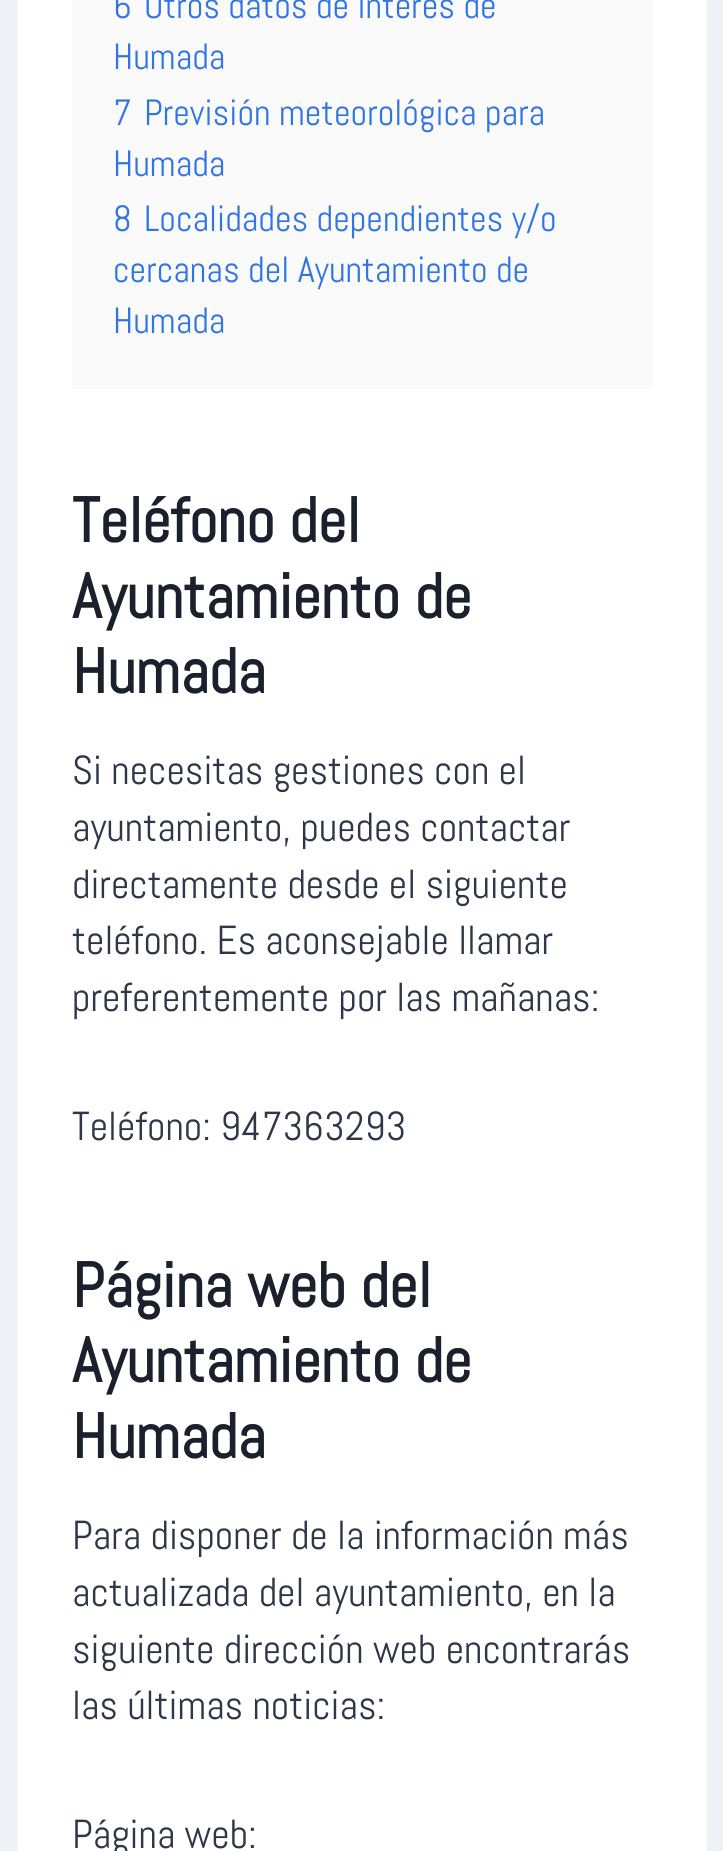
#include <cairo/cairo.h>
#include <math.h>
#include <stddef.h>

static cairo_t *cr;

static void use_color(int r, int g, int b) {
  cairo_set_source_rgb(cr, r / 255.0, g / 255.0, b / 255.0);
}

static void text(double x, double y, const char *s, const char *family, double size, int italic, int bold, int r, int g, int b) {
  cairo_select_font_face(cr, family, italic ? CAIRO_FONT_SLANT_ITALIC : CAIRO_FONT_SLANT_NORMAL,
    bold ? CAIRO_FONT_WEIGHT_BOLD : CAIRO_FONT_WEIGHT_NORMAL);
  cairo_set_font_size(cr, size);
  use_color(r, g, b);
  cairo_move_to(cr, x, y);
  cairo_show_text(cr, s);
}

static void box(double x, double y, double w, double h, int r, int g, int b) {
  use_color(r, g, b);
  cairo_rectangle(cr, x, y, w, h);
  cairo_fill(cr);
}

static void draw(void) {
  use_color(237, 242, 247);
  cairo_paint(cr);
  box(18, 0, 689, 1851, 255, 255, 255);
  box(72, 0, 581, 389, 250, 250, 250);
  text(113, 18, "6", "Abel", 36.5, 0, 0, 49, 117, 228);
  text(144, 18, "Otros datos de interés de", "Abel", 36.5, 0, 0, 49, 117, 228);
  text(113, 69, "Humada", "Abel", 36.5, 0, 0, 49, 117, 228);
  text(113, 125, "7", "Abel", 36.5, 0, 0, 49, 117, 228);
  text(144, 125, "Previsión meteorológica para", "Abel", 36.5, 0, 0, 49, 117, 228);
  text(113, 176, "Humada", "Abel", 36.5, 0, 0, 49, 117, 228);
  text(113, 231, "8", "Abel", 36.5, 0, 0, 49, 117, 228);
  text(144, 231, "Localidades dependientes y/o", "Abel", 36.5, 0, 0, 49, 117, 228);
  text(113, 282, "cercanas del Ayuntamiento de", "Abel", 36.5, 0, 0, 49, 117, 228);
  text(113, 333, "Humada", "Abel", 36.5, 0, 0, 49, 117, 228);
  text(72, 542, "Teléfono del", "Abel", 63, 0, 1, 26, 32, 44);
  text(72, 618, "Ayuntamiento de", "Abel", 63, 0, 1, 26, 32, 44);
  text(72, 693, "Humada", "Abel", 63, 0, 1, 26, 32, 44);
  text(72, 784, "Si necesitas gestiones con el", "Abel", 40.5, 0, 0, 45, 55, 72);
  text(72, 841, "ayuntamiento, puedes contactar", "Abel", 40.5, 0, 0, 45, 55, 72);
  text(72, 898, "directamente desde el siguiente", "Abel", 40.5, 0, 0, 45, 55, 72);
  text(72, 954, "teléfono. Es aconsejable llamar", "Abel", 40.5, 0, 0, 45, 55, 72);
  text(72, 1011, "preferentemente por las mañanas:", "Abel", 40.5, 0, 0, 45, 55, 72);
  text(72, 1140, "Teléfono: 947363293", "Abel", 40.5, 0, 0, 45, 55, 72);
  text(72, 1307, "Página web del", "Abel", 63, 0, 1, 26, 32, 44);
  text(72, 1382, "Ayuntamiento de", "Abel", 63, 0, 1, 26, 32, 44);
  text(72, 1458, "Humada", "Abel", 63, 0, 1, 26, 32, 44);
  text(72, 1549, "Para disponer de la información más", "Abel", 40.5, 0, 0, 45, 55, 72);
  text(72, 1606, "actualizada del ayuntamiento, en la", "Abel", 40.5, 0, 0, 45, 55, 72);
  text(72, 1663, "siguiente dirección web encontrarás", "Abel", 40.5, 0, 0, 45, 55, 72);
  text(72, 1719, "las últimas noticias:", "Abel", 40.5, 0, 0, 45, 55, 72);
  text(72, 1848, "Página web:", "Abel", 40.5, 0, 0, 45, 55, 72);
}

int main(void) {
  cairo_surface_t *surface = cairo_image_surface_create(CAIRO_FORMAT_RGB24, 723, 1851);
  cr = cairo_create(surface);
  cairo_font_options_t *options = cairo_font_options_create();
  cairo_font_options_set_hint_metrics(options, CAIRO_HINT_METRICS_OFF);
  cairo_font_options_set_hint_style(options, CAIRO_HINT_STYLE_NONE);
  cairo_set_font_options(cr, options);
  cairo_set_miter_limit(cr, 4);
  draw();
  cairo_surface_write_to_png(surface, "out.png");
  cairo_font_options_destroy(options);
  cairo_destroy(cr);
  cairo_surface_destroy(surface);
  return 0;
}
